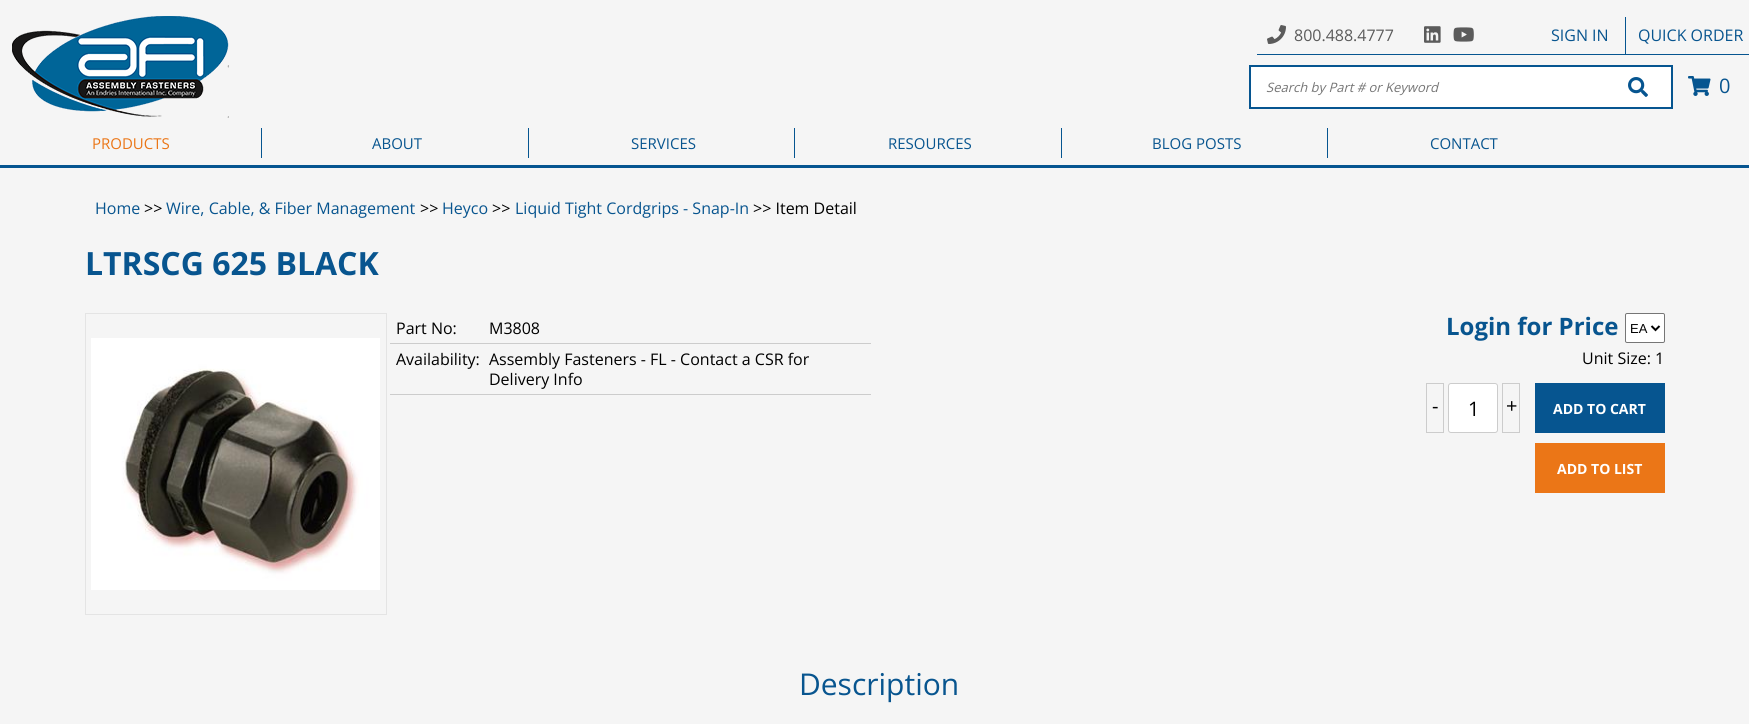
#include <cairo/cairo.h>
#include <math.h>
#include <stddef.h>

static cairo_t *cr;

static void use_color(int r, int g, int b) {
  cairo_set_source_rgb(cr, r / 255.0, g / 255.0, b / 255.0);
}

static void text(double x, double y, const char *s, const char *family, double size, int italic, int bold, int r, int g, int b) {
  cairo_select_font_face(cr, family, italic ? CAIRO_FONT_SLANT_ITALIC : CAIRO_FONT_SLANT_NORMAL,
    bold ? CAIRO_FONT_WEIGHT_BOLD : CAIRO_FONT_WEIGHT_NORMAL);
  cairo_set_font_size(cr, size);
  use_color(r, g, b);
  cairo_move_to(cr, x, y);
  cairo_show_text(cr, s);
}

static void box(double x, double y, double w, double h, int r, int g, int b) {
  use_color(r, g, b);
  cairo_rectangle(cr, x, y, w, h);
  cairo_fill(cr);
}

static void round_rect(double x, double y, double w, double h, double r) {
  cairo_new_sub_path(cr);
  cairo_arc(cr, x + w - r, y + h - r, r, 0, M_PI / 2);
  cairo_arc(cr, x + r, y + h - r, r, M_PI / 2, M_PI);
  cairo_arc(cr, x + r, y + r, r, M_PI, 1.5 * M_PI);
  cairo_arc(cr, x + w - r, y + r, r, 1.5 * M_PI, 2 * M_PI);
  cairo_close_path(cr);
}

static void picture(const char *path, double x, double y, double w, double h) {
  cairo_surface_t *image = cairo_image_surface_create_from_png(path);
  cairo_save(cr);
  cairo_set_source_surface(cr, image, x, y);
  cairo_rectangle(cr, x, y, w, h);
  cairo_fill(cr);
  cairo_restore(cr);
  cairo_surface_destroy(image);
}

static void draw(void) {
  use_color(245, 245, 245);
  cairo_paint(cr);
  box(0, 165, 1749, 3, 6, 85, 144);
  box(1257, 54, 492, 1, 6, 85, 144);
  picture("img_01.png", 1267, 25, 19, 19);
  picture("img_02.png", 1424, 26, 17, 17);
  picture("img_03.png", 1453, 27, 21, 15);
  box(1625, 17, 1, 37, 6, 85, 144);
  picture("img_04.png", 12, 16, 217, 102);
  cairo_rectangle(cr, 1250, 66, 422, 42);
  cairo_stroke(cr);
  box(1251, 67, 420, 40, 255, 255, 255);
  picture("img_05.png", 1628, 77, 20, 20);
  picture("img_06.png", 1688, 76, 23, 20);
  box(261, 128, 1, 30, 6, 85, 144);
  box(528, 128, 1, 30, 6, 85, 144);
  box(794, 128, 1, 30, 6, 85, 144);
  box(1061, 128, 1, 30, 6, 85, 144);
  box(1327, 128, 1, 30, 6, 85, 144);
  cairo_rectangle(cr, 85.5, 313.5, 301, 301);
  use_color(228, 228, 228);
  cairo_set_line_width(cr, 1);
  cairo_stroke(cr);
  picture("img_07.png", 91, 338, 289, 252);
  box(390, 343, 481, 1, 204, 204, 204);
  box(390, 394, 481, 1, 204, 204, 204);
  use_color(255, 255, 255);
  round_rect(1625.5, 313.5, 39, 29, 1.5);
  cairo_fill_preserve(cr);
  use_color(118, 118, 118);
  cairo_stroke(cr);
  cairo_new_path(cr);
  cairo_move_to(cr, 1651.5, 326);
  cairo_line_to(cr, 1655.5, 330);
  cairo_line_to(cr, 1659.5, 326);
  use_color(0, 0, 0);
  cairo_set_line_width(cr, 2);
  cairo_stroke(cr);
  cairo_rectangle(cr, 1426.5, 383.5, 17, 49);
  use_color(204, 204, 204);
  cairo_set_line_width(cr, 1);
  cairo_stroke(cr);
  use_color(255, 255, 255);
  round_rect(1448.5, 383.5, 49, 49, 2.5);
  cairo_fill_preserve(cr);
  use_color(204, 204, 204);
  cairo_stroke(cr);
  cairo_rectangle(cr, 1502.5, 383.5, 17, 49);
  cairo_stroke(cr);
  box(1535, 383, 130, 50, 6, 85, 144);
  box(1535, 443, 130, 50, 235, 118, 23);
  text(1294, 41, "800.488.4777", "Open Sans", 16, 0, 0, 91, 91, 91);
  text(1551, 41, "SIGN IN", "Open Sans", 16, 0, 0, 8, 85, 143);
  text(1638, 41, "QUICK ORDER", "Open Sans", 16, 0, 0, 8, 85, 143);
  text(1266, 92, "Search by Part # or Keyword", "Open Sans", 13, 1, 0, 117, 117, 117);
  text(1719, 93, "0", "Open Sans", 20, 0, 0, 8, 85, 143);
  text(92, 149, "PRODUCTS", "Open Sans", 15, 0, 0, 235, 118, 23);
  text(372, 149, "ABOUT", "Open Sans", 15, 0, 0, 8, 85, 143);
  text(631, 149, "SERVICES", "Open Sans", 15, 0, 0, 8, 85, 143);
  text(888, 149, "RESOURCES", "Open Sans", 15, 0, 0, 8, 85, 143);
  text(1152, 149, "BLOG POSTS", "Open Sans", 15, 0, 0, 8, 85, 143);
  text(1430, 149, "CONTACT", "Open Sans", 15, 0, 0, 8, 85, 143);
  text(95, 214, "Home", "Open Sans", 16, 0, 0, 8, 85, 143);
  text(144, 214, ">>", "Open Sans", 16, 0, 0, 0, 0, 0);
  text(166, 214, "Wire, Cable, & Fiber Management", "Open Sans", 16, 0, 0, 8, 85, 143);
  text(420, 214, ">>", "Open Sans", 16, 0, 0, 0, 0, 0);
  text(442, 214, "Heyco", "Open Sans", 16, 0, 0, 8, 85, 143);
  text(492, 214, ">>", "Open Sans", 16, 0, 0, 0, 0, 0);
  text(515, 214, "Liquid Tight Cordgrips - Snap-In", "Open Sans", 16, 0, 0, 8, 85, 143);
  text(753, 214, ">> Item Detail", "Open Sans", 16, 0, 0, 0, 0, 0);
  text(85, 275, "LTRSCG 625 BLACK", "Open Sans", 32, 0, 1, 8, 85, 143);
  text(396, 334, "Part No:", "Open Sans", 16, 0, 0, 0, 0, 0);
  text(489, 334, "M3808", "Open Sans", 16, 0, 0, 0, 0, 0);
  text(396, 365, "Availability:", "Open Sans", 16, 0, 0, 0, 0, 0);
  text(489, 365, "Assembly Fasteners - FL - Contact a CSR for", "Open Sans", 16, 0, 0, 0, 0, 0);
  text(489, 385, "Delivery Info", "Open Sans", 16, 0, 0, 0, 0, 0);
  text(1446, 335, "Login for Price", "Open Sans", 24, 0, 1, 8, 85, 143);
  text(1630, 333, "EA", "Liberation Sans", 13, 0, 0, 0, 0, 0);
  text(1582, 364, "Unit Size: 1", "Open Sans", 16, 0, 0, 0, 0, 0);
  text(1432, 413, "-", "Open Sans", 20, 0, 0, 0, 0, 0);
  text(1468, 416, "1", "Open Sans", 20, 0, 0, 0, 0, 0);
  text(1506, 413, "+", "Open Sans", 20, 0, 0, 0, 0, 0);
  text(1553, 414, "ADD TO CART", "Open Sans", 14, 0, 1, 255, 255, 255);
  text(1557, 474, "ADD TO LIST", "Open Sans", 14, 0, 1, 255, 255, 255);
  text(799, 695, "Description", "Open Sans", 30, 0, 0, 8, 85, 143);
}

int main(void) {
  cairo_surface_t *surface = cairo_image_surface_create(CAIRO_FORMAT_RGB24, 1749, 724);
  cr = cairo_create(surface);
  cairo_font_options_t *options = cairo_font_options_create();
  cairo_font_options_set_hint_metrics(options, CAIRO_HINT_METRICS_OFF);
  cairo_font_options_set_hint_style(options, CAIRO_HINT_STYLE_NONE);
  cairo_set_font_options(cr, options);
  cairo_set_miter_limit(cr, 4);
  draw();
  cairo_surface_write_to_png(surface, "out.png");
  cairo_font_options_destroy(options);
  cairo_destroy(cr);
  cairo_surface_destroy(surface);
  return 0;
}
